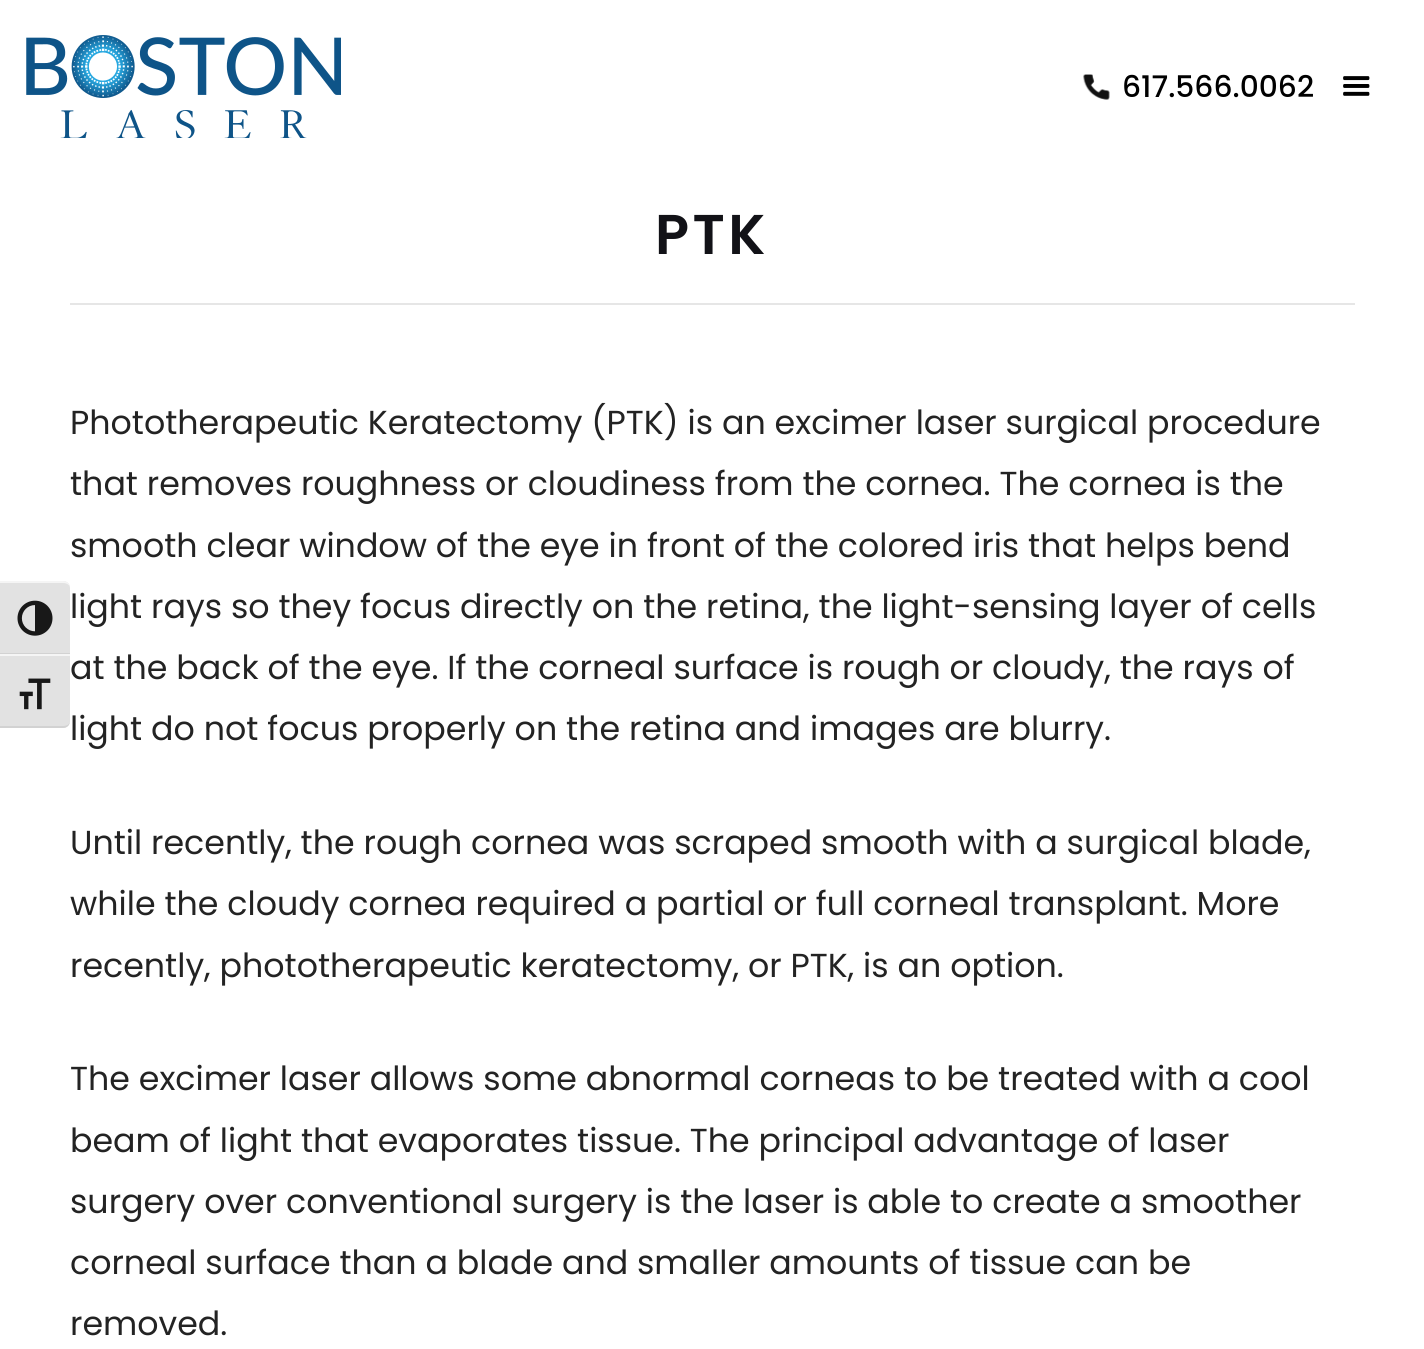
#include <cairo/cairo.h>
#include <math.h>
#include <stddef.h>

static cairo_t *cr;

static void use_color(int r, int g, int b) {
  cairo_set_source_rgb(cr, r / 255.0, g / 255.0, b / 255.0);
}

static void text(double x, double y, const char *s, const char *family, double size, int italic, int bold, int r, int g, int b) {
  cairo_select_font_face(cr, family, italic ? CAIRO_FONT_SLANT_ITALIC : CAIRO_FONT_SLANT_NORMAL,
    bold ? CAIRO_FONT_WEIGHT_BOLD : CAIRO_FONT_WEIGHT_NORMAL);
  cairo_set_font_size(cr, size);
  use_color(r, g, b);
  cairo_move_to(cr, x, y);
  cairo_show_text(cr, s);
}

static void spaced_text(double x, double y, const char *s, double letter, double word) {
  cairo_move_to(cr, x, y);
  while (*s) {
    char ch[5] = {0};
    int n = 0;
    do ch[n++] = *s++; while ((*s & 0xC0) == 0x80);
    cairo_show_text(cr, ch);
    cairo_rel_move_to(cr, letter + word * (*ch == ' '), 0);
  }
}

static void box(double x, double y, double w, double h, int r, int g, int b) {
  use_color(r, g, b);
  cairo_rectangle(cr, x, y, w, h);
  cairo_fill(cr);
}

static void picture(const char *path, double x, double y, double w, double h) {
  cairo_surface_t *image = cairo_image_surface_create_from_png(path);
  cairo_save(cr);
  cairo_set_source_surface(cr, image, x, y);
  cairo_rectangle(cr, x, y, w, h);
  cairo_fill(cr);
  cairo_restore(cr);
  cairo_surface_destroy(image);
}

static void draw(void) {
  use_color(255, 255, 255);
  cairo_paint(cr);
  picture("img_01.png", 26, 35, 315, 103);
  picture("img_02.png", 1083, 74, 27, 26);
  picture("img_03.png", 1083, 74, 27, 26);
  picture("img_04.png", 1343, 76, 27, 20);
  use_color(226, 226, 226);
  cairo_new_path(cr);
  cairo_move_to(cr, 0, 581);
  cairo_line_to(cr, 63, 581);
  cairo_curve_to(cr, 67, 581, 70, 584, 70, 588);
  cairo_line_to(cr, 70, 655);
  cairo_line_to(cr, 0, 655);
  cairo_close_path(cr);
  cairo_fill(cr);
  use_color(245, 245, 245);
  cairo_new_path(cr);
  cairo_move_to(cr, 0, 581);
  cairo_line_to(cr, 0, 583);
  cairo_line_to(cr, 63, 583);
  cairo_curve_to(cr, 67, 583, 70, 585, 70, 588);
  cairo_curve_to(cr, 70, 584, 67, 581, 63, 581);
  cairo_close_path(cr);
  cairo_fill(cr);
  box(0, 653, 70, 1, 210, 210, 210);
  picture("img_05.png", 17, 600, 36, 36);
  use_color(226, 226, 226);
  cairo_new_path(cr);
  cairo_move_to(cr, 0, 655);
  cairo_line_to(cr, 70, 655);
  cairo_line_to(cr, 70, 721);
  cairo_curve_to(cr, 70, 725, 67, 728, 63, 728);
  cairo_line_to(cr, 0, 728);
  cairo_close_path(cr);
  cairo_fill(cr);
  box(0, 654, 70, 2, 245, 245, 245);
  use_color(210, 210, 210);
  cairo_new_path(cr);
  cairo_move_to(cr, 0, 726);
  cairo_line_to(cr, 0, 728);
  cairo_line_to(cr, 63, 728);
  cairo_curve_to(cr, 67, 728, 70, 725, 70, 721);
  cairo_curve_to(cr, 70, 724, 67, 726, 63, 726);
  cairo_close_path(cr);
  cairo_fill(cr);
  picture("img_06.png", 19, 678, 32, 32);
  box(70, 303, 1285, 2, 230, 230, 230);
  text(1122, 97, "617.566.0062", "Poppins Medium", 29.75, 0, 0, 0, 0, 0);
  cairo_select_font_face(cr, "Poppins SemiBold", CAIRO_FONT_SLANT_NORMAL, CAIRO_FONT_WEIGHT_NORMAL);
  cairo_set_font_size(cr, 56);
  use_color(18, 18, 23);
  spaced_text(655, 254, "PTK", 3.5, 0);
  text(70, 434, "Phototherapeutic Keratectomy (PTK) is an excimer laser surgical procedure", "Poppins", 33.25, 0, 0, 35, 35, 35);
  text(70, 495, "that removes roughness or cloudiness from the cornea. The cornea is the", "Poppins", 33.25, 0, 0, 35, 35, 35);
  text(70, 557, "smooth clear window of the eye in front of the colored iris that helps bend", "Poppins", 33.25, 0, 0, 35, 35, 35);
  text(70, 618, "light rays so they focus directly on the retina, the light-sensing layer of cells", "Poppins", 33.25, 0, 0, 35, 35, 35);
  text(70, 679, "at the back of the eye. If the corneal surface is rough or cloudy, the rays of", "Poppins", 33.25, 0, 0, 35, 35, 35);
  text(70, 740, "light do not focus properly on the retina and images are blurry.", "Poppins", 33.25, 0, 0, 35, 35, 35);
  text(70, 854, "Until recently, the rough cornea was scraped smooth with a surgical blade,", "Poppins", 33.25, 0, 0, 35, 35, 35);
  text(70, 915, "while the cloudy cornea required a partial or full corneal transplant. More", "Poppins", 33.25, 0, 0, 35, 35, 35);
  text(70, 977, "recently, phototherapeutic keratectomy, or PTK, is an option.", "Poppins", 33.25, 0, 0, 35, 35, 35);
  text(70, 1090, "The excimer laser allows some abnormal corneas to be treated with a cool", "Poppins", 33.25, 0, 0, 35, 35, 35);
  text(70, 1152, "beam of light that evaporates tissue. The principal advantage of laser", "Poppins", 33.25, 0, 0, 35, 35, 35);
  text(70, 1213, "surgery over conventional surgery is the laser is able to create a smoother", "Poppins", 33.25, 0, 0, 35, 35, 35);
  text(70, 1274, "corneal surface than a blade and smaller amounts of tissue can be", "Poppins", 33.25, 0, 0, 35, 35, 35);
  text(70, 1335, "removed.", "Poppins", 33.25, 0, 0, 35, 35, 35);
}

int main(void) {
  cairo_surface_t *surface = cairo_image_surface_create(CAIRO_FORMAT_RGB24, 1424, 1349);
  cr = cairo_create(surface);
  cairo_font_options_t *options = cairo_font_options_create();
  cairo_font_options_set_hint_metrics(options, CAIRO_HINT_METRICS_OFF);
  cairo_font_options_set_hint_style(options, CAIRO_HINT_STYLE_NONE);
  cairo_set_font_options(cr, options);
  cairo_set_miter_limit(cr, 4);
  draw();
  cairo_surface_write_to_png(surface, "out.png");
  cairo_font_options_destroy(options);
  cairo_destroy(cr);
  cairo_surface_destroy(surface);
  return 0;
}
